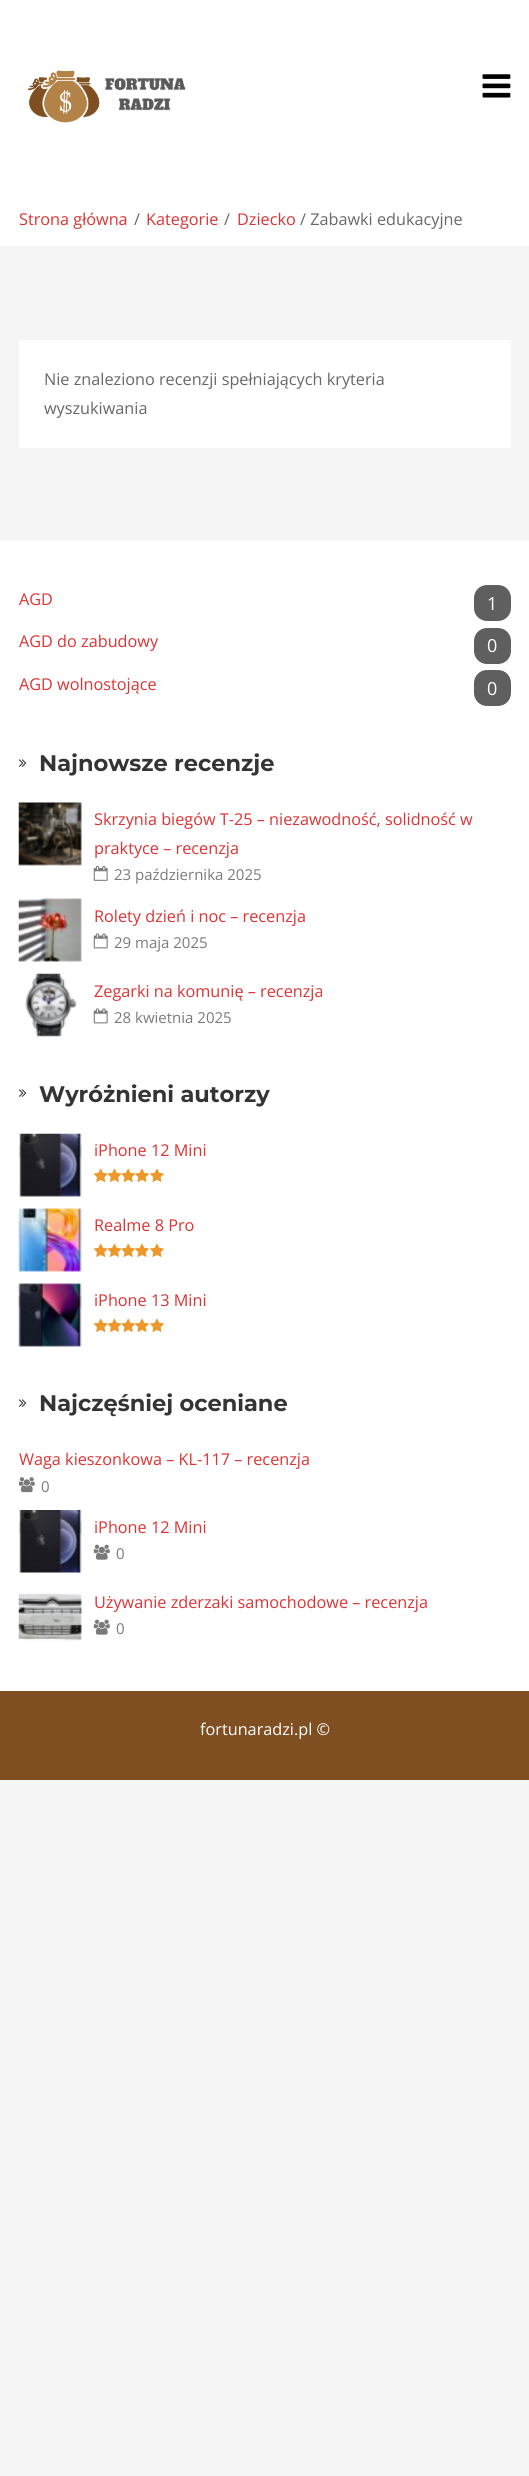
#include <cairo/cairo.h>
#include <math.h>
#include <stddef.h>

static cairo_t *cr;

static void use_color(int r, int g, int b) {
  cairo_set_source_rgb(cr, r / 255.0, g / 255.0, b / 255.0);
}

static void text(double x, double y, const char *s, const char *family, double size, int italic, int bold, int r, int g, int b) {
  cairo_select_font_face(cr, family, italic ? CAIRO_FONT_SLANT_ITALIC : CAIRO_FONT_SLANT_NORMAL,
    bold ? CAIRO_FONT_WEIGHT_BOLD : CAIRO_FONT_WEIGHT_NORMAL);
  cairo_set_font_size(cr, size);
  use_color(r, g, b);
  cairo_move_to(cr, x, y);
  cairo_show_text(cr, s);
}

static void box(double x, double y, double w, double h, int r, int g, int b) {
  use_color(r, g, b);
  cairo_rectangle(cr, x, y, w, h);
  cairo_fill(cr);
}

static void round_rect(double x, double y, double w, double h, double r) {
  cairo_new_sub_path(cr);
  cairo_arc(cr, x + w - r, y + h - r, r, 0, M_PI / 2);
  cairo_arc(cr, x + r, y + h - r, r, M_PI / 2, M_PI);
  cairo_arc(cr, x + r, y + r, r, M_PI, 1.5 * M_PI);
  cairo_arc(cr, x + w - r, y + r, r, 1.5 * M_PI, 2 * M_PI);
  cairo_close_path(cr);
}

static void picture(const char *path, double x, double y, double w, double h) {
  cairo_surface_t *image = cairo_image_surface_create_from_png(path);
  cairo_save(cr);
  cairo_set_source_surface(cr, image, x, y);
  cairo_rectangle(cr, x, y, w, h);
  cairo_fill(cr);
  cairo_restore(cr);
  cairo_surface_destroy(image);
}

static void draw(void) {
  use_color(245, 245, 245);
  cairo_paint(cr);
  box(0, 0, 529, 246, 255, 255, 255);
  picture("img_01.png", 27, 70, 159, 53);
  picture("img_02.png", 482, 74, 29, 24);
  box(19, 340, 492, 108, 255, 255, 255);
  box(0, 541, 529, 1150, 255, 255, 255);
  use_color(95, 95, 95);
  round_rect(474, 585, 37, 36, 13);
  cairo_fill(cr);
  round_rect(474, 628, 37, 36, 13);
  cairo_fill(cr);
  round_rect(474, 670, 37, 36, 13);
  cairo_fill(cr);
  picture("img_03.png", 19, 759, 8, 8);
  picture("img_04.png", 18, 802, 64, 64);
  picture("img_05.png", 93, 865, 15, 16);
  picture("img_06.png", 18, 898, 64, 64);
  picture("img_07.png", 93, 933, 15, 16);
  picture("img_08.png", 25, 973, 52, 64);
  picture("img_07.png", 93, 1008, 15, 16);
  picture("img_03.png", 19, 1089, 8, 8);
  picture("img_09.png", 18, 1133, 64, 64);
  picture("img_10.png", 93, 1168, 15, 14);
  picture("img_11.png", 107, 1168, 15, 14);
  picture("img_12.png", 121, 1168, 15, 14);
  picture("img_13.png", 135, 1168, 14, 14);
  picture("img_14.png", 150, 1168, 14, 14);
  picture("img_15.png", 18, 1208, 64, 64);
  picture("img_10.png", 93, 1243, 15, 14);
  picture("img_11.png", 107, 1243, 15, 14);
  picture("img_12.png", 121, 1243, 15, 14);
  picture("img_13.png", 135, 1243, 14, 14);
  picture("img_14.png", 150, 1243, 14, 14);
  picture("img_16.png", 18, 1283, 64, 64);
  picture("img_10.png", 93, 1318, 15, 14);
  picture("img_11.png", 107, 1318, 15, 14);
  picture("img_12.png", 121, 1318, 15, 14);
  picture("img_13.png", 135, 1318, 14, 14);
  picture("img_14.png", 150, 1318, 14, 14);
  picture("img_03.png", 19, 1399, 8, 8);
  picture("img_17.png", 19, 1477, 16, 16);
  picture("img_18.png", 18, 1510, 64, 63);
  picture("img_19.png", 93, 1544, 17, 16);
  picture("img_20.png", 18, 1593, 64, 49);
  picture("img_19.png", 93, 1619, 17, 16);
  box(0, 1691, 529, 89, 127, 79, 33);
  text(19, 225, "Strona główna", "Open Sans", 16.25, 0, 0, 221, 51, 51);
  text(134, 225, "/", "Open Sans", 16.25, 0, 0, 103, 103, 103);
  text(146, 225, "Kategorie", "Open Sans", 16.25, 0, 0, 221, 51, 51);
  text(224, 225, "/", "Open Sans", 16.25, 0, 0, 103, 103, 103);
  text(237, 225, "Dziecko", "Open Sans", 16.25, 0, 0, 221, 51, 51);
  text(300, 225, "/ Zabawki edukacyjne", "Open Sans", 16.25, 0, 0, 103, 103, 103);
  text(44, 385, "Nie znaleziono recenzji spełniających kryteria", "Open Sans", 16.25, 0, 0, 103, 103, 103);
  text(44, 414, "wyszukiwania", "Open Sans", 16.25, 0, 0, 103, 103, 103);
  text(19, 605, "AGD", "Open Sans", 16.25, 0, 0, 221, 51, 51);
  text(487, 610, "1", "Open Sans", 18, 0, 0, 255, 255, 255);
  text(19, 647, "AGD do zabudowy", "Open Sans", 16.25, 0, 0, 221, 51, 51);
  text(487, 652, "0", "Open Sans", 18, 0, 0, 255, 255, 255);
  text(19, 690, "AGD wolnostojące", "Open Sans", 16.25, 0, 0, 221, 51, 51);
  text(487, 695, "0", "Open Sans", 18, 0, 0, 255, 255, 255);
  text(39, 771, "Najnowsze recenzje", "Montserrat", 22.5, 0, 1, 52, 52, 52);
  text(94, 825, "Skrzynia biegów T-25 – niezawodność, solidność w", "Open Sans", 16.25, 0, 0, 221, 51, 51);
  text(94, 854, "praktyce – recenzja", "Open Sans", 16.25, 0, 0, 221, 51, 51);
  text(114, 880, "23 października 2025", "Open Sans", 15, 0, 0, 122, 122, 122);
  text(94, 922, "Rolety dzień i noc – recenzja", "Open Sans", 16.25, 0, 0, 221, 51, 51);
  text(114, 948, "29 maja 2025", "Open Sans", 15, 0, 0, 122, 122, 122);
  text(94, 997, "Zegarki na komunię – recenzja", "Open Sans", 16.25, 0, 0, 221, 51, 51);
  text(114, 1023, "28 kwietnia 2025", "Open Sans", 15, 0, 0, 122, 122, 122);
  text(39, 1102, "Wyróżnieni autorzy", "Montserrat", 22.5, 0, 1, 52, 52, 52);
  text(94, 1156, "iPhone 12 Mini", "Open Sans", 16.25, 0, 0, 221, 51, 51);
  text(94, 1231, "Realme 8 Pro", "Open Sans", 16.25, 0, 0, 221, 51, 51);
  text(94, 1306, "iPhone 13 Mini", "Open Sans", 16.25, 0, 0, 221, 51, 51);
  text(39, 1411, "Najczęśniej oceniane", "Montserrat", 22.5, 0, 1, 52, 52, 52);
  text(19, 1465, "Waga kieszonkowa – KL-117 – recenzja", "Open Sans", 16.25, 0, 0, 221, 51, 51);
  text(41, 1492, "0", "Open Sans", 15, 0, 0, 122, 122, 122);
  text(94, 1533, "iPhone 12 Mini", "Open Sans", 16.25, 0, 0, 221, 51, 51);
  text(116, 1559, "0", "Open Sans", 15, 0, 0, 122, 122, 122);
  text(94, 1608, "Używanie zderzaki samochodowe – recenzja", "Open Sans", 16.25, 0, 0, 221, 51, 51);
  text(116, 1634, "0", "Open Sans", 15, 0, 0, 122, 122, 122);
  text(200, 1735, "fortunaradzi.pl ©", "Open Sans", 16.25, 0, 0, 255, 255, 255);
}

int main(void) {
  cairo_surface_t *surface = cairo_image_surface_create(CAIRO_FORMAT_RGB24, 529, 2476);
  cr = cairo_create(surface);
  cairo_font_options_t *options = cairo_font_options_create();
  cairo_font_options_set_hint_metrics(options, CAIRO_HINT_METRICS_OFF);
  cairo_font_options_set_hint_style(options, CAIRO_HINT_STYLE_NONE);
  cairo_set_font_options(cr, options);
  cairo_set_miter_limit(cr, 4);
  draw();
  cairo_surface_write_to_png(surface, "out.png");
  cairo_font_options_destroy(options);
  cairo_destroy(cr);
  cairo_surface_destroy(surface);
  return 0;
}
